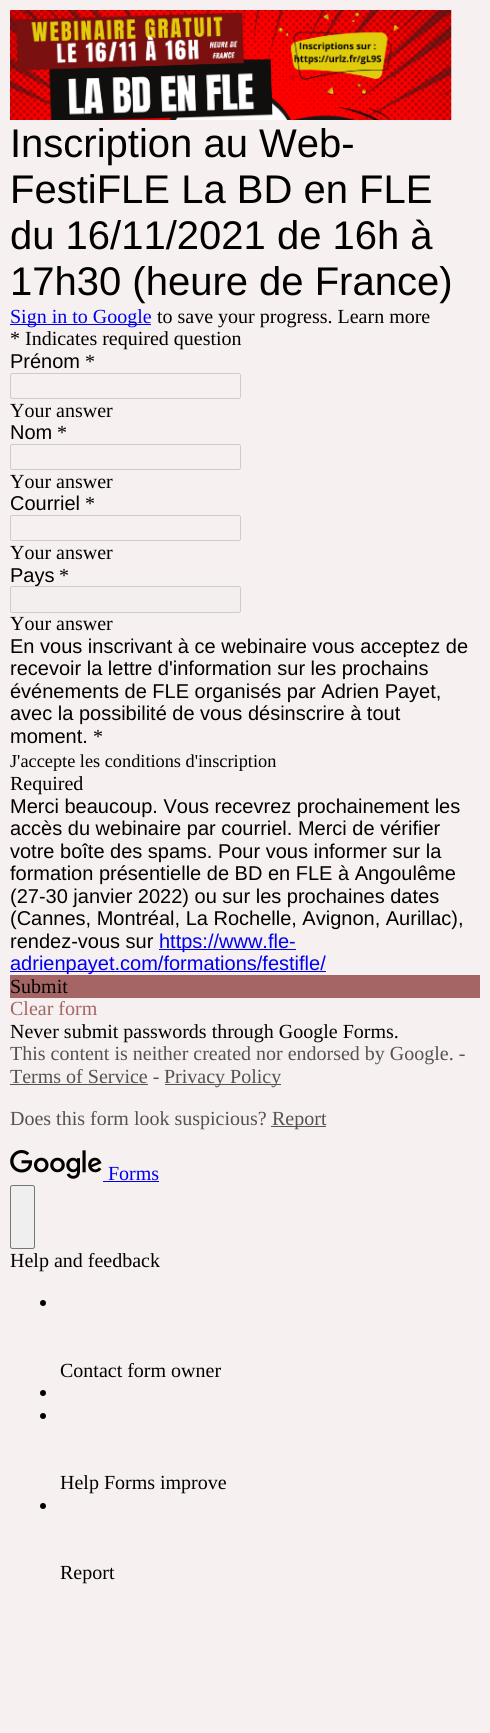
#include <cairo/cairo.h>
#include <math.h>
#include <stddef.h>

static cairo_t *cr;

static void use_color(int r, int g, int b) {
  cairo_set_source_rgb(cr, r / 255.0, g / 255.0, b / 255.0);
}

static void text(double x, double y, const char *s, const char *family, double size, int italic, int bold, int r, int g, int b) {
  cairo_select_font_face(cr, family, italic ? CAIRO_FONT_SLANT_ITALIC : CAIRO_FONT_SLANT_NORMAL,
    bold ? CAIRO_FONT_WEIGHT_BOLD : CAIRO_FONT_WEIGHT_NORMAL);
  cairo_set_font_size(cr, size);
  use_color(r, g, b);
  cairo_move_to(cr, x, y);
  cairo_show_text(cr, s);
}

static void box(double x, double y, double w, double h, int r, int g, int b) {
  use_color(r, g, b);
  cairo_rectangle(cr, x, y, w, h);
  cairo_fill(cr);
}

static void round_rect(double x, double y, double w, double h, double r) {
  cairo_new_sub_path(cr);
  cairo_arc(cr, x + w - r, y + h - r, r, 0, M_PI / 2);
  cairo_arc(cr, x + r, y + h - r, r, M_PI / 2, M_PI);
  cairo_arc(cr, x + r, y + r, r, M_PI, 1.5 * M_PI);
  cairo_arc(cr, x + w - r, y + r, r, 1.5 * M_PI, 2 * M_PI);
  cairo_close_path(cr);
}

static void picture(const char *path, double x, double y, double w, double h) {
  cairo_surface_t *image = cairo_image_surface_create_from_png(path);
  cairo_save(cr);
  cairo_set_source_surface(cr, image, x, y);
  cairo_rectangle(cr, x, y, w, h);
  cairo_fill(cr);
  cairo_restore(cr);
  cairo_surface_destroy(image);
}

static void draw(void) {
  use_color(247, 240, 240);
  cairo_paint(cr);
  picture("img_01.png", 10, 10, 442, 110);
  box(10, 324, 141, 1, 0, 0, 238);
  round_rect(10.5, 373.5, 230, 25, 2);
  use_color(207, 203, 203);
  cairo_set_line_width(cr, 1);
  cairo_stroke(cr);
  round_rect(10.5, 444.5, 230, 25, 2);
  cairo_stroke(cr);
  round_rect(10.5, 515.5, 230, 25, 2);
  cairo_stroke(cr);
  box(159, 949, 137, 1, 0, 0, 238);
  box(10, 971, 316, 1, 0, 0, 238);
  box(10, 975, 470, 23, 165, 101, 101);
  box(10, 1084, 138, 1, 84, 82, 82);
  box(165, 1084, 116, 1, 84, 82, 82);
  box(271, 1126, 55, 1, 84, 82, 82);
  picture("img_02.png", 10, 1150, 92, 29);
  box(103, 1181, 56, 1, 0, 0, 238);
  use_color(239, 239, 239);
  round_rect(10.5, 1185.5, 24, 63, 2);
  cairo_fill_preserve(cr);
  use_color(118, 118, 118);
  cairo_stroke(cr);
  use_color(0, 0, 0);
  cairo_arc(cr, 43, 1303, 3, 0, 2 * M_PI);
  cairo_fill(cr);
  cairo_arc(cr, 43, 1393, 3, 0, 2 * M_PI);
  cairo_fill(cr);
  cairo_arc(cr, 43, 1416, 3, 0, 2 * M_PI);
  cairo_fill(cr);
  cairo_arc(cr, 43, 1506, 3, 0, 2 * M_PI);
  cairo_fill(cr);
  text(10, 157, "Inscription au Web-", "Liberation Sans", 40, 0, 0, 0, 0, 0);
  text(10, 203, "FestiFLE La BD en FLE", "Liberation Sans", 40, 0, 0, 0, 0, 0);
  text(10, 249, "du 16/11/2021 de 16h à", "Liberation Sans", 40, 0, 0, 0, 0, 0);
  text(10, 295, "17h30 (heure de France)", "Liberation Sans", 40, 0, 0, 0, 0, 0);
  text(10, 323, "Sign in to Google", "Liberation Serif", 20, 0, 0, 0, 0, 238);
  text(157, 323, "to save your progress. Learn more", "Liberation Serif", 20, 0, 0, 0, 0, 0);
  text(10, 345, "* Indicates required question", "Liberation Serif", 20, 0, 0, 0, 0, 0);
  text(10, 368, "Prénom", "Liberation Sans", 20, 0, 0, 0, 0, 0);
  text(85, 368, "*", "Liberation Serif", 20, 0, 0, 0, 0, 0);
  text(10, 417, "Your answer", "Liberation Serif", 20, 0, 0, 0, 0, 0);
  text(10, 439, "Nom", "Liberation Sans", 20, 0, 0, 0, 0, 0);
  text(57, 439, "*", "Liberation Serif", 20, 0, 0, 0, 0, 0);
  text(10, 488, "Your answer", "Liberation Serif", 20, 0, 0, 0, 0, 0);
  text(10, 510, "Courriel", "Liberation Sans", 20, 0, 0, 0, 0, 0);
  text(85, 510, "*", "Liberation Serif", 20, 0, 0, 0, 0, 0);
  text(10, 559, "Your answer", "Liberation Serif", 20, 0, 0, 0, 0, 0);
  text(10, 582, "Pays", "Liberation Sans", 20, 0, 0, 0, 0, 0);
  text(59, 582, "*", "Liberation Serif", 20, 0, 0, 0, 0, 0);
  cairo_set_source_rgba(cr, 0.937, 0.937, 0.937, 0.3);
  round_rect(10, 586, 231, 27, 2.5);
  cairo_fill(cr);
  round_rect(10.5, 586.5, 230, 26, 2);
  cairo_set_source_rgba(cr, 0.463, 0.463, 0.463, 0.3);
  cairo_stroke(cr);
  text(10, 630, "Your answer", "Liberation Serif", 20, 0, 0, 0, 0, 0);
  text(10, 653, "En vous inscrivant à ce webinaire vous acceptez de", "Liberation Sans", 20, 0, 0, 0, 0, 0);
  text(10, 675, "recevoir la lettre d'information sur les prochains", "Liberation Sans", 20, 0, 0, 0, 0, 0);
  text(10, 698, "événements de FLE organisés par Adrien Payet,", "Liberation Sans", 20, 0, 0, 0, 0, 0);
  text(10, 720, "avec la possibilité de vous désinscrire à tout", "Liberation Sans", 20, 0, 0, 0, 0, 0);
  text(10, 743, "moment.", "Liberation Sans", 20, 0, 0, 0, 0, 0);
  text(93, 743, "*", "Liberation Serif", 20, 0, 0, 0, 0, 0);
  text(10, 767, "J'accepte les conditions d'inscription", "Liberation Serif", 18.3, 0, 0, 0, 0, 0);
  text(10, 790, "Required", "Liberation Serif", 20, 0, 0, 0, 0, 0);
  text(10, 813, "Merci beaucoup. Vous recevrez prochainement les", "Liberation Sans", 20, 0, 0, 0, 0, 0);
  text(10, 835, "accès du webinaire par courriel. Merci de vérifier", "Liberation Sans", 20, 0, 0, 0, 0, 0);
  text(10, 858, "votre boîte des spams. Pour vous informer sur la", "Liberation Sans", 20, 0, 0, 0, 0, 0);
  text(10, 880, "formation présentielle de BD en FLE à Angoulême", "Liberation Sans", 20, 0, 0, 0, 0, 0);
  text(10, 903, "(27-30 janvier 2022) ou sur les prochaines dates", "Liberation Sans", 20, 0, 0, 0, 0, 0);
  text(10, 925, "(Cannes, Montréal, La Rochelle, Avignon, Aurillac),", "Liberation Sans", 20, 0, 0, 0, 0, 0);
  text(10, 948, "rendez-vous sur", "Liberation Sans", 20, 0, 0, 0, 0, 0);
  text(159, 948, "https://www.fle-", "Liberation Sans", 20, 0, 0, 0, 0, 238);
  text(10, 970, "adrienpayet.com/formations/festifle/", "Liberation Sans", 20, 0, 0, 0, 0, 238);
  text(10, 993, "Submit", "Liberation Serif", 20, 0, 0, 0, 0, 0);
  text(10, 1015, "Clear form", "Liberation Serif", 20, 0, 0, 165, 101, 101);
  text(10, 1038, "Never submit passwords through Google Forms.", "Liberation Serif", 20, 0, 0, 0, 0, 0);
  text(10, 1060, "This content is neither created nor endorsed by Google. -", "Liberation Serif", 20, 0, 0, 84, 82, 82);
  text(10, 1083, "Terms of Service -", "Liberation Serif", 20, 0, 0, 84, 82, 82);
  text(164, 1083, "Privacy Policy", "Liberation Serif", 20, 0, 0, 84, 82, 82);
  text(10, 1125, "Does this form look suspicious?", "Liberation Serif", 20, 0, 0, 84, 82, 82);
  text(272, 1125, "Report", "Liberation Serif", 20, 0, 0, 84, 82, 82);
  text(108, 1180, "Forms", "Liberation Serif", 20, 0, 0, 0, 0, 238);
  text(10, 1267, "Help and feedback", "Liberation Serif", 20, 0, 0, 0, 0, 0);
  text(60, 1377, "Contact form owner", "Liberation Serif", 20, 0, 0, 0, 0, 0);
  text(60, 1489, "Help Forms improve", "Liberation Serif", 20, 0, 0, 0, 0, 0);
  text(60, 1579, "Report", "Liberation Serif", 20, 0, 0, 0, 0, 0);
}

int main(void) {
  cairo_surface_t *surface = cairo_image_surface_create(CAIRO_FORMAT_RGB24, 490, 1733);
  cr = cairo_create(surface);
  cairo_font_options_t *options = cairo_font_options_create();
  cairo_font_options_set_hint_metrics(options, CAIRO_HINT_METRICS_OFF);
  cairo_font_options_set_hint_style(options, CAIRO_HINT_STYLE_NONE);
  cairo_set_font_options(cr, options);
  cairo_set_miter_limit(cr, 4);
  draw();
  cairo_surface_write_to_png(surface, "out.png");
  cairo_font_options_destroy(options);
  cairo_destroy(cr);
  cairo_surface_destroy(surface);
  return 0;
}
